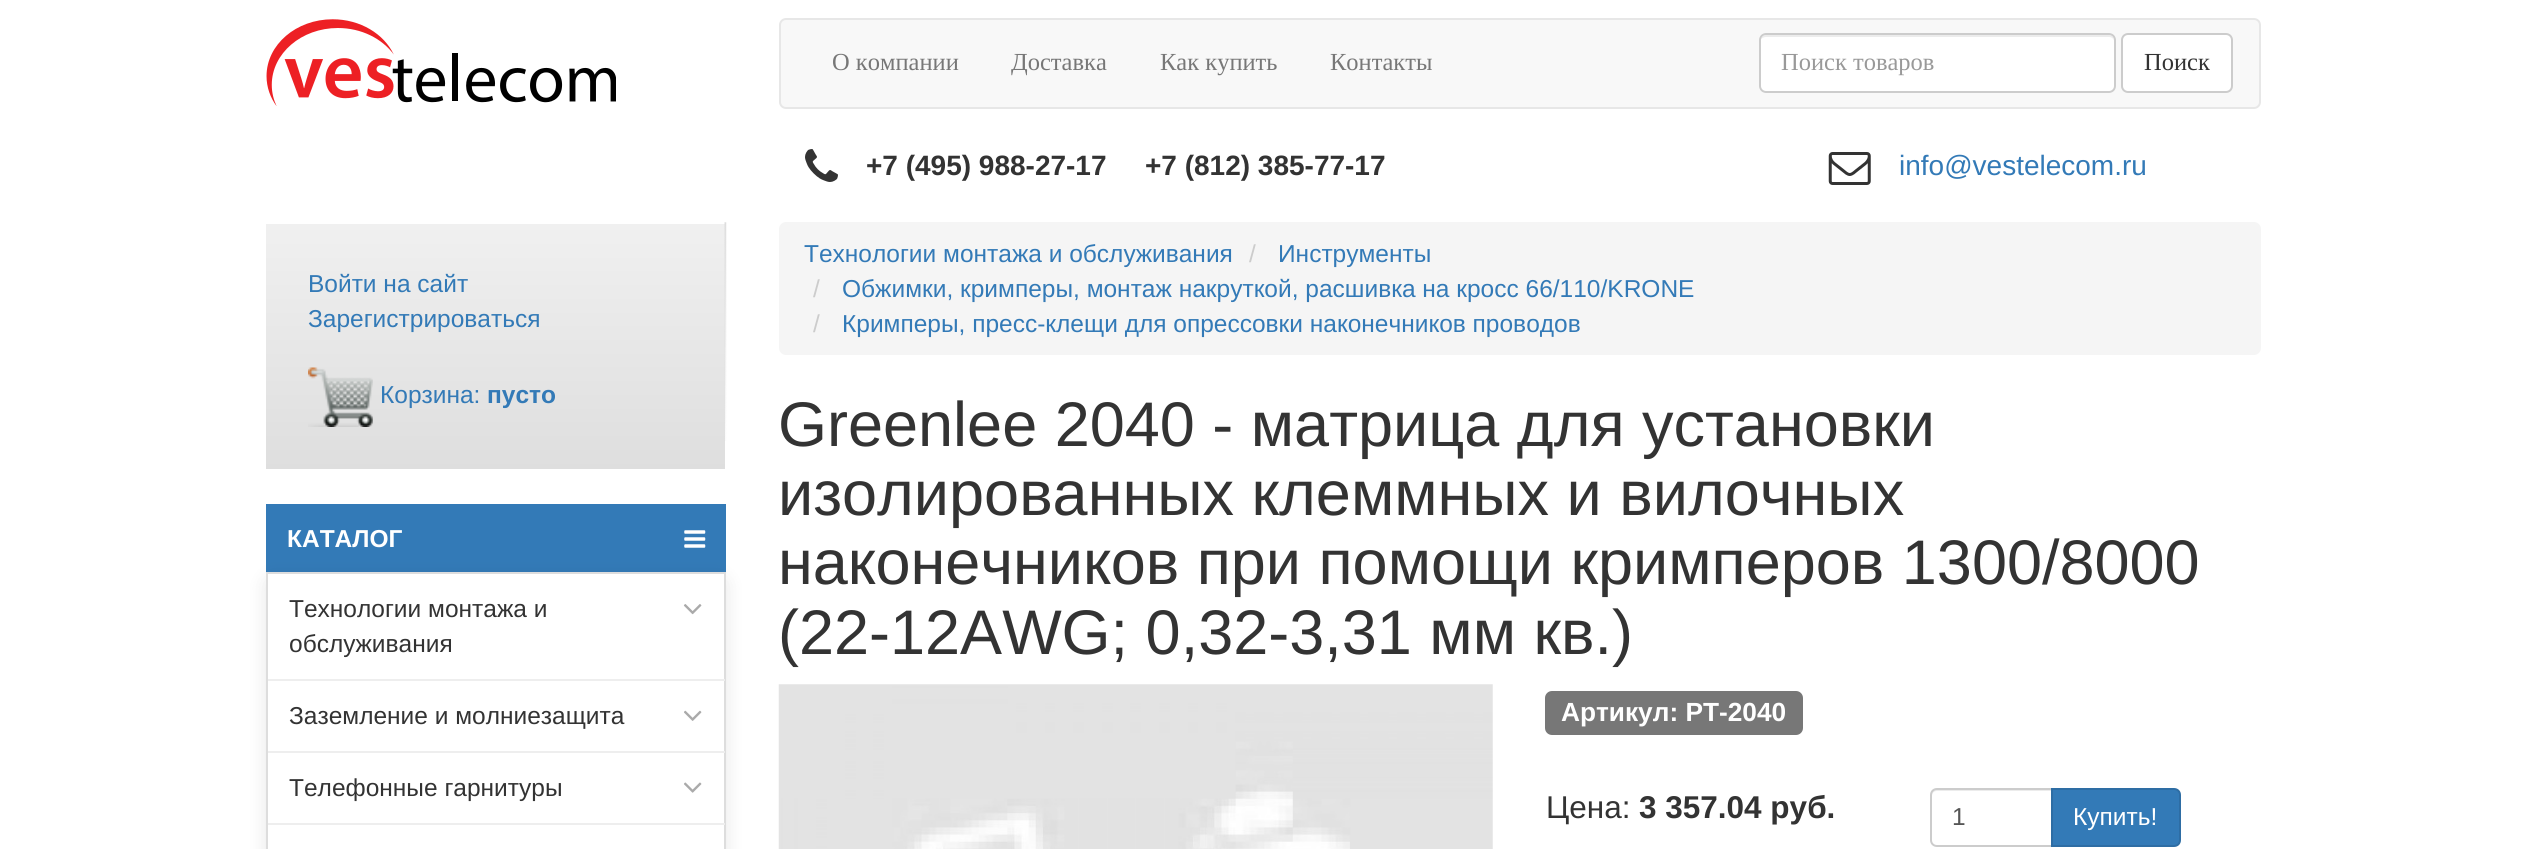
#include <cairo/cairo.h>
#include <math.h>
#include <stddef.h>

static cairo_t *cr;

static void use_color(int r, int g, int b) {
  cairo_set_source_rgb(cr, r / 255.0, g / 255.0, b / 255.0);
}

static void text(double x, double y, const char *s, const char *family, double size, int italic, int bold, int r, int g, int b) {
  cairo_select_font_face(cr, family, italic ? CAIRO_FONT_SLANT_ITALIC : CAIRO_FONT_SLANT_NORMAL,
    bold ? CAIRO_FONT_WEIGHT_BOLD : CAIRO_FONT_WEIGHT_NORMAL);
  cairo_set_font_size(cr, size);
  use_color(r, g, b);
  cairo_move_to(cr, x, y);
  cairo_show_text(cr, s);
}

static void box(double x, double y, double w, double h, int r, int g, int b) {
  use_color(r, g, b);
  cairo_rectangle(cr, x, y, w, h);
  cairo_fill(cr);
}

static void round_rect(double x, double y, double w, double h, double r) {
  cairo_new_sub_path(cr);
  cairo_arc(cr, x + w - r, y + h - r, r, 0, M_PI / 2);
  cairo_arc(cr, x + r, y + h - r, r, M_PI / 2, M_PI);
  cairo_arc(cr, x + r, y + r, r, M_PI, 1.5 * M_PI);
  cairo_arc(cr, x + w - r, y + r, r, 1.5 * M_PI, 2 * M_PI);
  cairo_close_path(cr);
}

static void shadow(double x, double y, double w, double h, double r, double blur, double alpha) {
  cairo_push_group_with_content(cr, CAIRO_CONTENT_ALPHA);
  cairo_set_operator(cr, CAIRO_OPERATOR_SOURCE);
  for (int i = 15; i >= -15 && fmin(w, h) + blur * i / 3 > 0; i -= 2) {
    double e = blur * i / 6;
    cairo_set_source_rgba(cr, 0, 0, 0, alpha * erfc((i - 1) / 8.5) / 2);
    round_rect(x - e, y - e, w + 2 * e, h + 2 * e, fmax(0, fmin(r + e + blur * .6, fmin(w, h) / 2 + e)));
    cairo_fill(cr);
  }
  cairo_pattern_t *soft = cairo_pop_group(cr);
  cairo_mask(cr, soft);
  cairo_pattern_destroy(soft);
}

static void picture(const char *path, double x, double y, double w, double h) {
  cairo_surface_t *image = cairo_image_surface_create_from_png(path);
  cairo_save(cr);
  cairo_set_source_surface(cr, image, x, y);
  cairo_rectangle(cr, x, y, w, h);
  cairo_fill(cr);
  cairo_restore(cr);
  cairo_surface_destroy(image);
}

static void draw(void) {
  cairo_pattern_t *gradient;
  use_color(255, 255, 255);
  cairo_paint(cr);
  picture("img_01.png", 266, 19, 350, 87);
  use_color(248, 248, 248);
  round_rect(780, 19, 1480, 89, 6);
  cairo_fill_preserve(cr);
  use_color(231, 231, 231);
  cairo_stroke(cr);
  use_color(255, 255, 255);
  round_rect(1759, 33, 357, 60, 7);
  cairo_fill(cr);
  use_color(236, 236, 236);
  cairo_new_path(cr);
  cairo_move_to(cr, 1766, 37);
  cairo_line_to(cr, 2109, 37);
  cairo_curve_to(cr, 2112, 37, 2114, 39, 2114, 42);
  cairo_curve_to(cr, 2114, 39, 2113, 35, 2109, 35);
  cairo_line_to(cr, 1766, 35);
  cairo_curve_to(cr, 1764, 35, 1761, 37, 1761, 39);
  cairo_curve_to(cr, 1762, 38, 1764, 37, 1766, 37);
  cairo_close_path(cr);
  cairo_fill(cr);
  round_rect(1760, 34, 355, 58, 6);
  use_color(204, 204, 204);
  cairo_stroke(cr);
  use_color(255, 255, 255);
  round_rect(2122, 34, 110, 58, 6);
  cairo_fill_preserve(cr);
  use_color(204, 204, 204);
  cairo_stroke(cr);
  picture("img_02.png", 805, 149, 33, 33);
  picture("img_03.png", 1828, 152, 43, 33);
  gradient = cairo_pattern_create_linear(495, 224, 495, 469);
  cairo_pattern_add_color_stop_rgba(gradient, 0, 0.941, 0.941, 0.941, 1);
  cairo_pattern_add_color_stop_rgba(gradient, 1, 0.871, 0.871, 0.871, 1);
  cairo_set_source(cr, gradient);
  cairo_pattern_destroy(gradient);
  cairo_rectangle(cr, 266, 224, 459, 245);
  cairo_fill(cr);
  picture("img_04.png", 724, 222, 3, 219);
  picture("img_05.png", 308, 367, 65, 60);
  box(266, 504, 460, 68, 51, 122, 183);
  picture("img_06.png", 684, 530, 22, 18);
  cairo_save(cr);
  cairo_set_fill_rule(cr, CAIRO_FILL_RULE_EVEN_ODD);
  cairo_new_path(cr);
  cairo_move_to(cr, 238, 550);
  cairo_line_to(cr, 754, 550);
  cairo_line_to(cr, 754, 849);
  cairo_line_to(cr, 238, 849);
  cairo_close_path(cr);
  cairo_move_to(cr, 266, 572);
  cairo_line_to(cr, 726, 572);
  cairo_line_to(cr, 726, 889);
  cairo_curve_to(cr, 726, 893, 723, 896, 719, 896);
  cairo_line_to(cr, 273, 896);
  cairo_curve_to(cr, 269, 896, 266, 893, 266, 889);
  cairo_close_path(cr);
  cairo_clip(cr);
  use_color(0, 0, 0);
  shadow(266, 578, 460, 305, 7, 9, 0.1);
  cairo_restore(cr);
  cairo_rectangle(cr, 267, 573, 458, 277);
  use_color(221, 221, 221);
  cairo_stroke(cr);
  picture("img_07.png", 683, 604, 19, 11);
  box(268, 679, 457, 2, 238, 238, 238);
  picture("img_08.png", 684, 710, 18, 11);
  box(268, 751, 457, 2, 238, 238, 238);
  picture("img_09.png", 684, 782, 18, 11);
  box(268, 823, 457, 2, 238, 238, 238);
  use_color(245, 245, 245);
  round_rect(779, 222, 1482, 133, 7);
  cairo_fill(cr);
  picture("img_10.png", 778, 684, 715, 165);
  use_color(119, 119, 119);
  round_rect(1545, 691, 258, 44, 7);
  cairo_fill(cr);
  use_color(236, 236, 236);
  cairo_new_path(cr);
  cairo_move_to(cr, 1937, 791);
  cairo_line_to(cr, 2051, 791);
  cairo_line_to(cr, 2051, 789);
  cairo_line_to(cr, 1937, 789);
  cairo_curve_to(cr, 1934, 789, 1932, 791, 1932, 794);
  cairo_line_to(cr, 1932, 796);
  cairo_curve_to(cr, 1932, 793, 1934, 791, 1937, 791);
  cairo_close_path(cr);
  cairo_fill(cr);
  cairo_new_path(cr);
  cairo_move_to(cr, 1937, 789);
  cairo_line_to(cr, 2052, 789);
  cairo_line_to(cr, 2052, 846);
  cairo_line_to(cr, 1937, 846);
  cairo_curve_to(cr, 1933.5, 846, 1931, 843.5, 1931, 840);
  cairo_line_to(cr, 1931, 795);
  cairo_curve_to(cr, 1931, 791.5, 1933.5, 789, 1937, 789);
  cairo_close_path(cr);
  use_color(204, 204, 204);
  cairo_stroke(cr);
  use_color(51, 122, 183);
  cairo_new_path(cr);
  cairo_move_to(cr, 2052, 789);
  cairo_line_to(cr, 2174, 789);
  cairo_curve_to(cr, 2177.5, 789, 2180, 791.5, 2180, 795);
  cairo_line_to(cr, 2180, 840);
  cairo_curve_to(cr, 2180, 843.5, 2177.5, 846, 2174, 846);
  cairo_line_to(cr, 2052, 846);
  cairo_close_path(cr);
  cairo_fill_preserve(cr);
  use_color(46, 109, 164);
  cairo_stroke(cr);
  text(832, 70, "О компании", "Liberation Serif", 24.5, 0, 0, 119, 119, 119);
  text(1011, 70, "Доставка", "Liberation Serif", 24.5, 0, 0, 119, 119, 119);
  text(1160, 70, "Как купить", "Liberation Serif", 24.5, 0, 0, 119, 119, 119);
  text(1330, 70, "Контакты", "Liberation Serif", 24.5, 0, 0, 119, 119, 119);
  text(1781, 70, "Поиск товаров", "Liberation Serif", 24.5, 0, 0, 153, 153, 153);
  text(2144, 70, "Поиск", "Liberation Serif", 24.5, 0, 0, 51, 51, 51);
  text(866, 175, "+7 (495) 988-27-17", "Liberation Sans", 28, 0, 1, 51, 51, 51);
  text(1145, 175, "+7 (812) 385-77-17", "Liberation Sans", 28, 0, 1, 51, 51, 51);
  text(1899, 175, "info@vestelecom.ru", "Liberation Sans", 28, 0, 0, 51, 122, 183);
  text(308, 292, "Войти на сайт", "Liberation Sans", 24.5, 0, 0, 51, 122, 183);
  text(308, 327, "Зарегистрироваться", "Liberation Sans", 24.5, 0, 0, 51, 122, 183);
  text(380, 403, "Корзина:", "Liberation Sans", 24.5, 0, 0, 51, 122, 183);
  text(487, 403, "пусто", "Liberation Sans", 24.5, 0, 1, 51, 122, 183);
  text(287, 547, "КАТАЛОГ", "Liberation Sans", 24.5, 0, 1, 255, 255, 255);
  text(289, 617, "Технологии монтажа и", "Liberation Sans", 24.5, 0, 0, 51, 51, 51);
  text(289, 652, "обслуживания", "Liberation Sans", 24.5, 0, 0, 51, 51, 51);
  text(289, 724, "Заземление и молниезащита", "Liberation Sans", 24.5, 0, 0, 51, 51, 51);
  text(289, 796, "Телефонные гарнитуры", "Liberation Sans", 24.5, 0, 0, 51, 51, 51);
  text(804, 262, "Технологии монтажа и обслуживания", "Liberation Sans", 24.5, 0, 0, 51, 122, 183);
  text(1249, 262, "/", "Liberation Sans", 24.5, 0, 0, 204, 204, 204);
  text(1278, 262, "Инструменты", "Liberation Sans", 24.5, 0, 0, 51, 122, 183);
  text(813, 297, "/", "Liberation Sans", 24.5, 0, 0, 204, 204, 204);
  text(842, 297, "Обжимки, кримперы, монтаж накруткой, расшивка на кросс 66/110/KRONE", "Liberation Sans", 24.5, 0, 0, 51, 122, 183);
  text(813, 332, "/", "Liberation Sans", 24.5, 0, 0, 204, 204, 204);
  text(842, 332, "Кримперы, пресс-клещи для опрессовки наконечников проводов", "Liberation Sans", 24.5, 0, 0, 51, 122, 183);
  text(778, 446, "Greenlee 2040 - матрица для установки", "Liberation Sans", 63, 0, 0, 51, 51, 51);
  text(778, 515, "изолированных клеммных и вилочных", "Liberation Sans", 63, 0, 0, 51, 51, 51);
  text(778, 584, "наконечников при помощи кримперов 1300/8000", "Liberation Sans", 63, 0, 0, 51, 51, 51);
  text(778, 654, "(22-12AWG; 0,32-3,31 мм кв.)", "Liberation Sans", 63, 0, 0, 51, 51, 51);
  text(1561, 721, "Артикул: PT-2040", "Liberation Sans", 26.25, 0, 1, 255, 255, 255);
  text(1546, 818, "Цена:", "Liberation Sans", 31.5, 0, 0, 51, 51, 51);
  text(1639, 818, "3 357.04 руб.", "Liberation Sans", 31.5, 0, 1, 51, 51, 51);
  text(1952, 825, "1", "Liberation Sans", 24.5, 0, 0, 85, 85, 85);
  text(2073, 825, "Купить!", "Liberation Sans", 24.5, 0, 0, 255, 255, 255);
}

int main(void) {
  cairo_surface_t *surface = cairo_image_surface_create(CAIRO_FORMAT_RGB24, 2527, 849);
  cr = cairo_create(surface);
  cairo_font_options_t *options = cairo_font_options_create();
  cairo_font_options_set_hint_metrics(options, CAIRO_HINT_METRICS_OFF);
  cairo_font_options_set_hint_style(options, CAIRO_HINT_STYLE_NONE);
  cairo_set_font_options(cr, options);
  cairo_set_miter_limit(cr, 4);
  draw();
  cairo_surface_write_to_png(surface, "out.png");
  cairo_font_options_destroy(options);
  cairo_destroy(cr);
  cairo_surface_destroy(surface);
  return 0;
}
